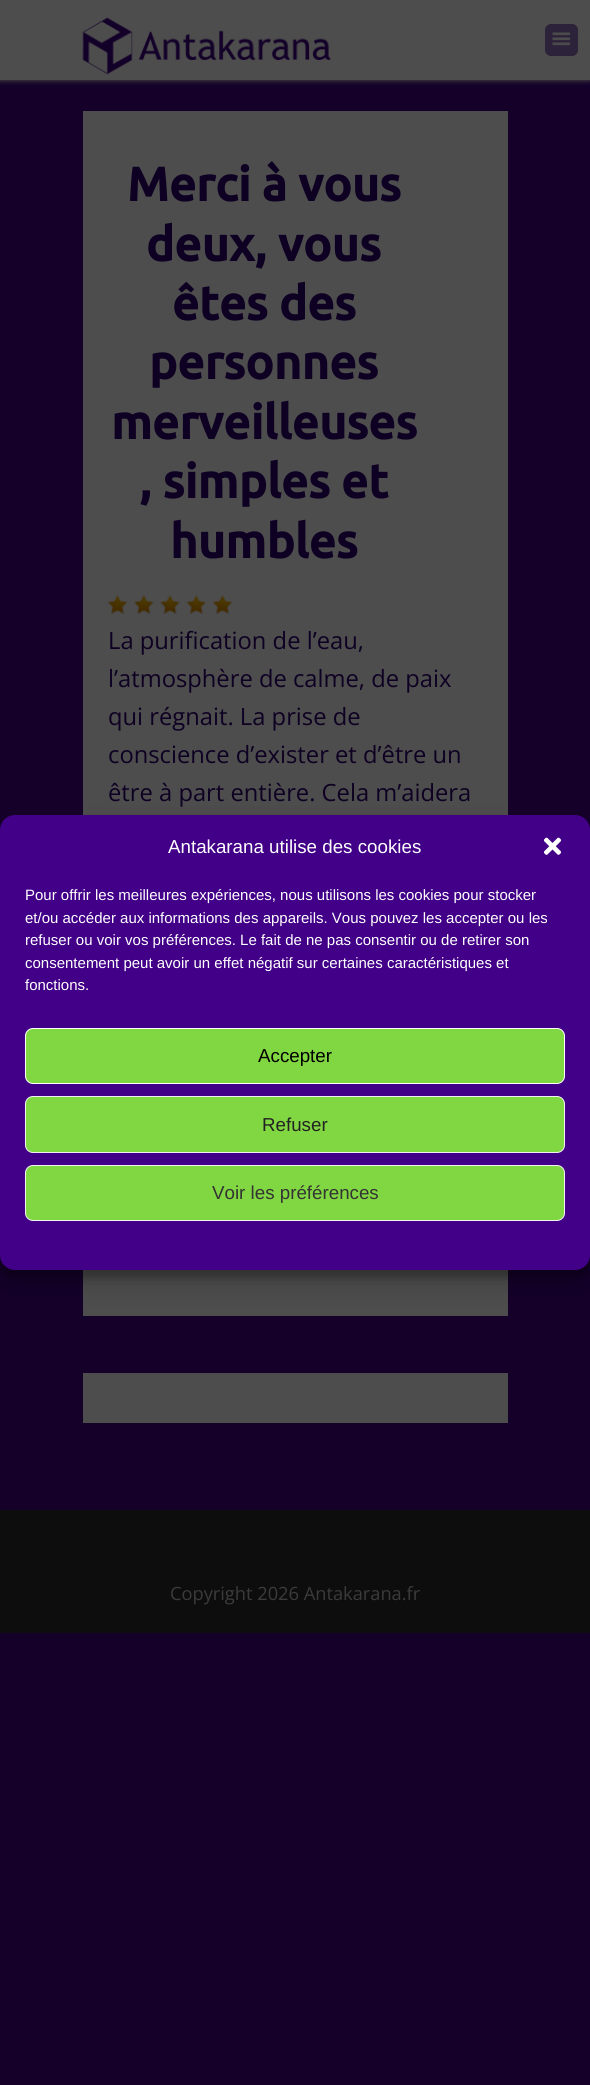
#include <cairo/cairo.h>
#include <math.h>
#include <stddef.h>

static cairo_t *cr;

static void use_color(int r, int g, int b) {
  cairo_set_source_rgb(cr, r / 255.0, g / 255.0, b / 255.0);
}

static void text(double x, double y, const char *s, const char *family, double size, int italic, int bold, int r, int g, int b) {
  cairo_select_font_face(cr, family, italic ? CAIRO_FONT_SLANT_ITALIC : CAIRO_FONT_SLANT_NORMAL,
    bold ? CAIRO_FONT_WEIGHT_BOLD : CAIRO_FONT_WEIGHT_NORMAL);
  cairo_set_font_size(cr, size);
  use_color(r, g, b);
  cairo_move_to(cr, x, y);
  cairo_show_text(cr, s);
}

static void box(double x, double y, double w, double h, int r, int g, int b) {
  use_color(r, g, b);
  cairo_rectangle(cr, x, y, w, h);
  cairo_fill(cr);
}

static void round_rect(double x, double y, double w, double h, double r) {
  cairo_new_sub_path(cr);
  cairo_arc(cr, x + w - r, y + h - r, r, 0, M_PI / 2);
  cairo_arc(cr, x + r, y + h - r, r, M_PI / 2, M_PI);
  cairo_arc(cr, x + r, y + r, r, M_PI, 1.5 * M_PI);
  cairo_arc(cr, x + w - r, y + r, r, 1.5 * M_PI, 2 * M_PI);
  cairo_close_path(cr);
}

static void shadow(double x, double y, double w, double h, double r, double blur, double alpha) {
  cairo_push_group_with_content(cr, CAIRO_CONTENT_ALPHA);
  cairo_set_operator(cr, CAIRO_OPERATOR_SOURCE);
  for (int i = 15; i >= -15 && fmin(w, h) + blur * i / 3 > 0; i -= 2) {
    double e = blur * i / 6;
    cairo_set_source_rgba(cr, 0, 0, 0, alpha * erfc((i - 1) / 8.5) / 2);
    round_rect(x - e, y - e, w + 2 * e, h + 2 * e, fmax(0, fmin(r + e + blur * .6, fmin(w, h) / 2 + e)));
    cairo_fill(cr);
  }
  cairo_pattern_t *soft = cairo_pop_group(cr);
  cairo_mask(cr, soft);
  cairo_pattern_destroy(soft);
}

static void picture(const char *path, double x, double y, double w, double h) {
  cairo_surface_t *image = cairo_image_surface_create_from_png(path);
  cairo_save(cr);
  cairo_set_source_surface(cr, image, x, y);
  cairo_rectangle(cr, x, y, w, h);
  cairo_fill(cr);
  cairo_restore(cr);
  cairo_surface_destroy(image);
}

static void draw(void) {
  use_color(20, 0, 41);
  cairo_paint(cr);
  use_color(67, 66, 66);
  shadow(0, 1, 590, 80, 0, 2.5, 1);
  box(0, 0, 590, 80, 77, 77, 77);
  picture("img_01.png", 82, 17, 249, 58);
  use_color(44, 34, 57);
  round_rect(545, 24, 33, 32, 6);
  cairo_fill(cr);
  picture("img_02.png", 552, 32, 19, 14);
  box(83, 111, 425, 1205, 77, 77, 77);
  picture("img_03.png", 107, 595, 21, 19);
  picture("img_04.png", 134, 595, 20, 19);
  picture("img_05.png", 160, 595, 20, 19);
  picture("img_06.png", 186, 595, 20, 19);
  picture("img_03.png", 212, 595, 21, 19);
  box(83, 1373, 425, 50, 77, 77, 77);
  use_color(0, 0, 0);
  shadow(0, 823, 590, 455, 15, 4, 0.23);
  shadow(0, 828, 590, 455, 15, 12.5, 0.19);
  use_color(65, 0, 135);
  round_rect(0, 815, 590, 455, 15);
  cairo_fill(cr);
  picture("img_07.png", 543, 837, 19, 18);
  use_color(129, 215, 66);
  round_rect(25.5, 1028.5, 539, 55, 7.5);
  cairo_fill_preserve(cr);
  use_color(255, 255, 255);
  cairo_set_line_width(cr, 1);
  cairo_stroke(cr);
  use_color(129, 215, 66);
  round_rect(25.5, 1096.5, 539, 56, 7.5);
  cairo_fill_preserve(cr);
  use_color(242, 242, 242);
  cairo_stroke(cr);
  use_color(129, 215, 66);
  round_rect(25.5, 1165.5, 539, 55, 7.5);
  cairo_fill_preserve(cr);
  use_color(242, 242, 242);
  cairo_stroke(cr);
  box(0, 1510, 590, 123, 13, 13, 13);
  text(127, 201, "Merci à vous", "Ubuntu", 47.5, 0, 1, 14, 0, 34);
  text(146, 261, "deux, vous", "Ubuntu", 47.5, 0, 1, 14, 0, 34);
  text(172, 320, "êtes des", "Ubuntu", 47.5, 0, 1, 14, 0, 34);
  text(149, 379, "personnes", "Ubuntu", 47.5, 0, 1, 14, 0, 34);
  text(111, 439, "merveilleuses", "Ubuntu", 47.5, 0, 1, 14, 0, 34);
  text(139, 498, ", simples et", "Ubuntu", 47.5, 0, 1, 14, 0, 34);
  text(170, 558, "humbles", "Ubuntu", 47.5, 0, 1, 14, 0, 34);
  text(108, 649, "La purification de l’eau,", "Open Sans", 23.75, 0, 0, 14, 0, 34);
  text(108, 687, "l’atmosphère de calme, de paix", "Open Sans", 23.75, 0, 0, 14, 0, 34);
  text(108, 725, "qui régnait. La prise de", "Open Sans", 23.75, 0, 0, 14, 0, 34);
  text(108, 763, "conscience d’exister et d’être un", "Open Sans", 23.75, 0, 0, 14, 0, 34);
  text(108, 801, "être à part entière. Cela m’aidera", "Open Sans", 23.75, 0, 0, 14, 0, 34);
  text(168, 853, "Antakarana utilise des cookies", "Liberation Sans", 18.75, 0, 0, 255, 255, 255);
  text(25, 900, "Pour offrir les meilleures expériences, nous utilisons les cookies pour stocker", "Liberation Sans", 15, 0, 0, 255, 255, 255);
  text(25, 923, "et/ou accéder aux informations des appareils. Vous pouvez les accepter ou les", "Liberation Sans", 15, 0, 0, 255, 255, 255);
  text(25, 945, "refuser ou voir vos préférences. Le fait de ne pas consentir ou de retirer son", "Liberation Sans", 15, 0, 0, 255, 255, 255);
  text(25, 968, "consentement peut avoir un effet négatif sur certaines caractéristiques et", "Liberation Sans", 15, 0, 0, 255, 255, 255);
  text(25, 990, "fonctions.", "Liberation Sans", 15, 0, 0, 255, 255, 255);
  text(258, 1062, "Accepter", "Liberation Sans", 18.75, 0, 0, 0, 0, 0);
  text(262, 1131, "Refuser", "Liberation Sans", 18.75, 0, 0, 34, 34, 34);
  text(212, 1199, "Voir les préférences", "Liberation Sans", 18.75, 0, 0, 51, 51, 51);
  text(170, 1600, "Copyright 2026 Antakarana.fr", "Open Sans", 18.25, 0, 0, 59, 59, 59);
}

int main(void) {
  cairo_surface_t *surface = cairo_image_surface_create(CAIRO_FORMAT_RGB24, 590, 2085);
  cr = cairo_create(surface);
  cairo_font_options_t *options = cairo_font_options_create();
  cairo_font_options_set_hint_metrics(options, CAIRO_HINT_METRICS_OFF);
  cairo_font_options_set_hint_style(options, CAIRO_HINT_STYLE_NONE);
  cairo_set_font_options(cr, options);
  cairo_set_miter_limit(cr, 4);
  draw();
  cairo_surface_write_to_png(surface, "out.png");
  cairo_font_options_destroy(options);
  cairo_destroy(cr);
  cairo_surface_destroy(surface);
  return 0;
}
